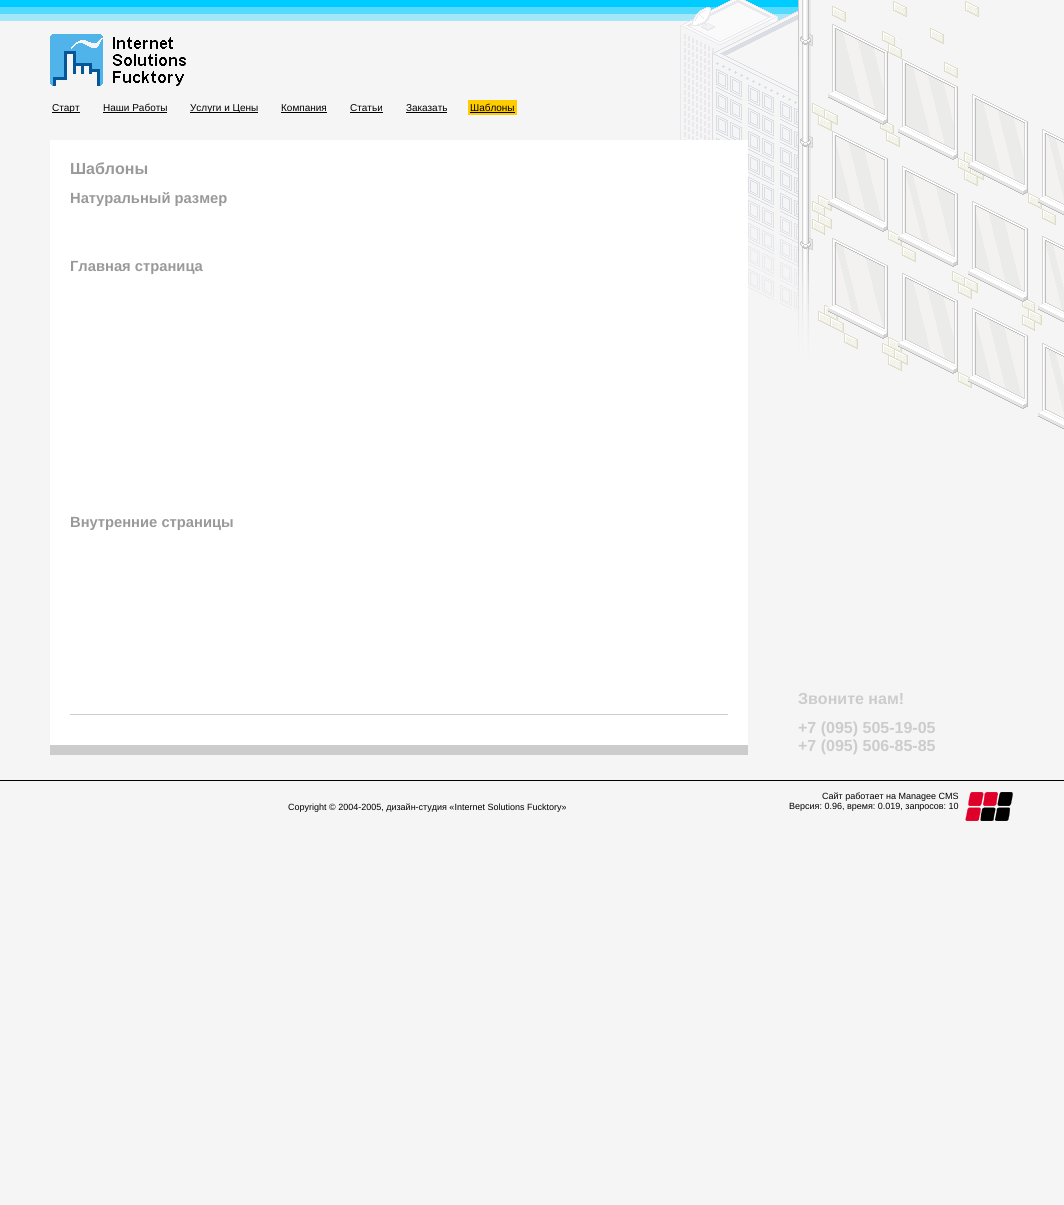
#include <cairo/cairo.h>
#include <math.h>
#include <stddef.h>

static cairo_t *cr;

static void use_color(int r, int g, int b) {
  cairo_set_source_rgb(cr, r / 255.0, g / 255.0, b / 255.0);
}

static void text(double x, double y, const char *s, const char *family, double size, int italic, int bold, int r, int g, int b) {
  cairo_select_font_face(cr, family, italic ? CAIRO_FONT_SLANT_ITALIC : CAIRO_FONT_SLANT_NORMAL,
    bold ? CAIRO_FONT_WEIGHT_BOLD : CAIRO_FONT_WEIGHT_NORMAL);
  cairo_set_font_size(cr, size);
  use_color(r, g, b);
  cairo_move_to(cr, x, y);
  cairo_show_text(cr, s);
}

static void box(double x, double y, double w, double h, int r, int g, int b) {
  use_color(r, g, b);
  cairo_rectangle(cr, x, y, w, h);
  cairo_fill(cr);
}

static void picture(const char *path, double x, double y, double w, double h) {
  cairo_surface_t *image = cairo_image_surface_create_from_png(path);
  cairo_save(cr);
  cairo_set_source_surface(cr, image, x, y);
  cairo_rectangle(cr, x, y, w, h);
  cairo_fill(cr);
  cairo_restore(cr);
  cairo_surface_destroy(image);
}

static void draw(void) {
  use_color(245, 245, 245);
  cairo_paint(cr);
  picture("img_01.png", 0, 0, 798, 21);
  picture("img_02.png", 680, 0, 118, 311);
  picture("img_03.png", 50, 34, 136, 52);
  box(52, 112, 28, 1, 0, 0, 0);
  box(103, 112, 64, 1, 0, 0, 0);
  box(190, 112, 68, 1, 0, 0, 0);
  box(281, 112, 46, 1, 0, 0, 0);
  box(350, 112, 33, 1, 0, 0, 0);
  box(406, 112, 41, 1, 0, 0, 0);
  box(468, 100, 49, 15, 255, 204, 0);
  box(470, 112, 45, 1, 0, 0, 0);
  box(50, 140, 698, 605, 255, 255, 255);
  box(70, 714, 658, 1, 204, 204, 204);
  box(50, 745, 698, 10, 204, 204, 204);
  picture("img_04.png", 798, 0, 266, 429);
  box(0, 780, 1064, 1, 0, 0, 0);
  picture("img_05.png", 965, 792, 48, 29);
  text(52, 111, "Старт", "Liberation Sans", 10, 0, 0, 0, 0, 0);
  text(103, 111, "Наши Работы", "Liberation Sans", 10, 0, 0, 0, 0, 0);
  text(190, 111, "Услуги и Цены", "Liberation Sans", 10, 0, 0, 0, 0, 0);
  text(281, 111, "Компания", "Liberation Sans", 10, 0, 0, 0, 0, 0);
  text(350, 111, "Статьи", "Liberation Sans", 10, 0, 0, 0, 0, 0);
  text(406, 111, "Заказать", "Liberation Sans", 10, 0, 0, 0, 0, 0);
  text(470, 111, "Шаблоны", "Liberation Sans", 10, 0, 0, 0, 0, 0);
  text(70, 174, "Шаблоны", "Liberation Sans", 16, 0, 1, 153, 153, 153);
  text(70, 203, "Натуральный размер", "Liberation Sans", 14.75, 0, 1, 153, 153, 153);
  text(70, 271, "Главная страница", "Liberation Sans", 14.75, 0, 1, 153, 153, 153);
  text(70, 527, "Внутренние страницы", "Liberation Sans", 14.75, 0, 1, 153, 153, 153);
  text(798, 704, "Звоните нам!", "Liberation Sans", 16, 0, 1, 204, 204, 204);
  text(798, 733, "+7 (095) 505-19-05", "Liberation Sans", 16, 0, 1, 204, 204, 204);
  text(798, 751, "+7 (095) 506-85-85", "Liberation Sans", 16, 0, 1, 204, 204, 204);
  text(288, 810, "Copyright © 2004-2005, дизайн-студия «Internet Solutions Fucktory»", "Liberation Sans", 9, 0, 0, 0, 0, 0);
  text(822, 799, "Сайт работает на Managee CMS", "Liberation Sans", 9, 0, 0, 0, 0, 0);
  text(789, 809, "Версия: 0.96, время: 0.019, запросов: 10", "Liberation Sans", 9, 0, 0, 0, 0, 0);
}

int main(void) {
  cairo_surface_t *surface = cairo_image_surface_create(CAIRO_FORMAT_RGB24, 1064, 1205);
  cr = cairo_create(surface);
  cairo_font_options_t *options = cairo_font_options_create();
  cairo_font_options_set_hint_metrics(options, CAIRO_HINT_METRICS_OFF);
  cairo_font_options_set_hint_style(options, CAIRO_HINT_STYLE_NONE);
  cairo_set_font_options(cr, options);
  cairo_set_miter_limit(cr, 4);
  draw();
  cairo_surface_write_to_png(surface, "out.png");
  cairo_font_options_destroy(options);
  cairo_destroy(cr);
  cairo_surface_destroy(surface);
  return 0;
}
